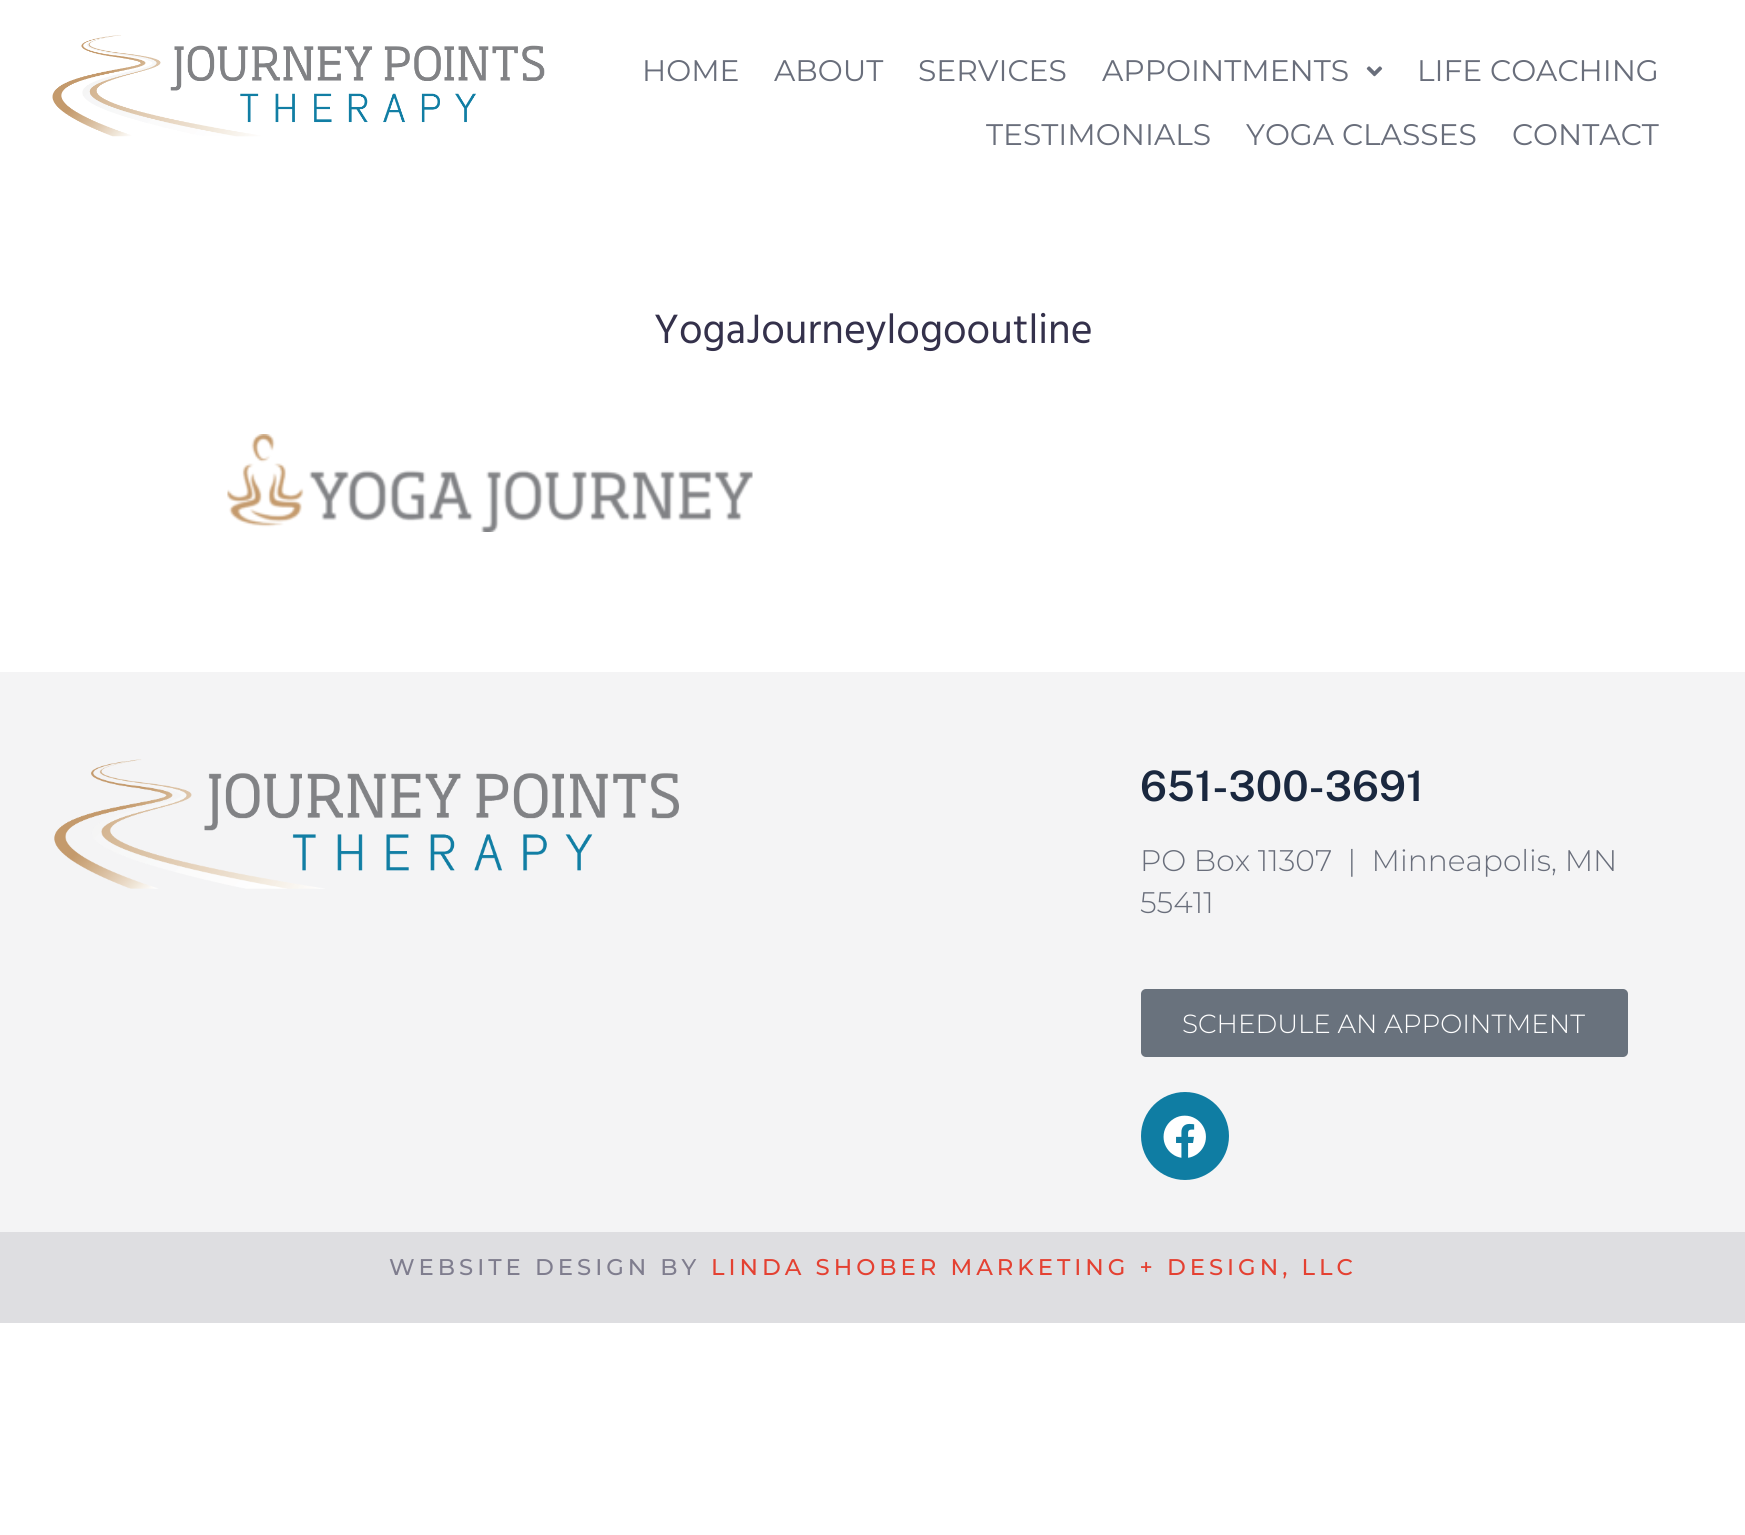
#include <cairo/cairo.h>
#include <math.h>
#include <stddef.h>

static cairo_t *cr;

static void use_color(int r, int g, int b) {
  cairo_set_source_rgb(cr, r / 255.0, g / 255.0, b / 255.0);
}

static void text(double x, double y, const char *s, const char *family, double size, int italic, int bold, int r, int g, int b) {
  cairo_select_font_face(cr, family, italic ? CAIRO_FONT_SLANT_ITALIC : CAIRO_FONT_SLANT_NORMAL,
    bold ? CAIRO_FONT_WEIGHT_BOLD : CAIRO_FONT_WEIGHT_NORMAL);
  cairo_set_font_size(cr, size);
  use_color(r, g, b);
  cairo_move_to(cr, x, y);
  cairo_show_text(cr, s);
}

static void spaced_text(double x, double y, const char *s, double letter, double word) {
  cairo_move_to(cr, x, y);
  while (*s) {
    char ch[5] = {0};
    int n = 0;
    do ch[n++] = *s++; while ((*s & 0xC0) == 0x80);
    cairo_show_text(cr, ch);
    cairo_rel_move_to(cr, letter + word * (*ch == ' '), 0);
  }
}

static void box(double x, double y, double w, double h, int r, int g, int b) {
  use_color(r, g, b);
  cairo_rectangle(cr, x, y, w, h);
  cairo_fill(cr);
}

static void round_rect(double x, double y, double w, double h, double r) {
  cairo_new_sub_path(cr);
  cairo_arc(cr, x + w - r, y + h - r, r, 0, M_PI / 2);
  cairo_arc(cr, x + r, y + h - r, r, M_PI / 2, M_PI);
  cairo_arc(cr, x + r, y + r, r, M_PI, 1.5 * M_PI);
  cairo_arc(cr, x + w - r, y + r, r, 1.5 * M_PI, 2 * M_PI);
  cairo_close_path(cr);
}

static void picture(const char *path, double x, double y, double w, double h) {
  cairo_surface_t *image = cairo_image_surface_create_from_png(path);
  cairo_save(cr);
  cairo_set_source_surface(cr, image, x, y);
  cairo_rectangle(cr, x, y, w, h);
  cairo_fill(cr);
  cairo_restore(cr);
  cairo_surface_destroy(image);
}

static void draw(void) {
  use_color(255, 255, 255);
  cairo_paint(cr);
  picture("img_01.png", 52, 35, 493, 102);
  picture("img_02.png", 1366, 66, 17, 11);
  picture("img_03.png", 227, 434, 526, 98);
  box(0, 672, 1745, 560, 244, 244, 245);
  picture("img_04.png", 54, 759, 625, 130);
  use_color(105, 114, 125);
  round_rect(1141, 989, 487, 68, 5);
  cairo_fill(cr);
  use_color(15, 125, 163);
  cairo_arc(cr, 1185, 1136, 44, 0, 2 * M_PI);
  cairo_fill(cr);
  picture("img_05.png", 1163, 1115, 43, 43);
  box(0, 1232, 1745, 91, 222, 222, 225);
  text(642, 81, "HOME", "Montserrat", 29.75, 0, 0, 105, 110, 123);
  text(774, 81, "ABOUT", "Montserrat", 29.75, 0, 0, 105, 110, 123);
  text(918, 81, "SERVICES", "Montserrat", 29.75, 0, 0, 105, 110, 123);
  text(1102, 81, "APPOINTMENTS", "Montserrat", 29.75, 0, 0, 105, 110, 123);
  text(1417, 81, "LIFE COACHING", "Montserrat", 29.75, 0, 0, 105, 110, 123);
  text(986, 145, "TESTIMONIALS", "Montserrat", 29.75, 0, 0, 105, 110, 123);
  text(1246, 145, "YOGA CLASSES", "Montserrat", 29.75, 0, 0, 105, 110, 123);
  text(1512, 145, "CONTACT", "Montserrat", 29.75, 0, 0, 105, 110, 123);
  text(654, 343, "YogaJourneylogooutline", "Hind", 42, 0, 0, 52, 49, 75);
  text(1140, 801, "651-300-3691", "Public Sans SemiBold", 42, 0, 0, 26, 40, 63);
  text(1140, 871, "PO Box 11307  |  Minneapolis, MN", "Montserrat Light", 29.75, 0, 0, 105, 110, 123);
  text(1140, 913, "55411", "Montserrat Light", 29.75, 0, 0, 105, 110, 123);
  text(1182, 1033, "SCHEDULE AN APPOINTMENT", "Montserrat Light", 26.25, 0, 0, 255, 255, 255);
  cairo_select_font_face(cr, "Montserrat Medium", CAIRO_FONT_SLANT_NORMAL, CAIRO_FONT_WEIGHT_NORMAL);
  cairo_set_font_size(cr, 22.75);
  use_color(127, 125, 142);
  spaced_text(389, 1275, "WEBSITE DESIGN BY", 4, 0);
  use_color(228, 65, 50);
  spaced_text(711, 1275, "LINDA SHOBER MARKETING + DESIGN, LLC", 4, 0);
}

int main(void) {
  cairo_surface_t *surface = cairo_image_surface_create(CAIRO_FORMAT_RGB24, 1745, 1535);
  cr = cairo_create(surface);
  cairo_font_options_t *options = cairo_font_options_create();
  cairo_font_options_set_hint_metrics(options, CAIRO_HINT_METRICS_OFF);
  cairo_font_options_set_hint_style(options, CAIRO_HINT_STYLE_NONE);
  cairo_set_font_options(cr, options);
  cairo_set_miter_limit(cr, 4);
  draw();
  cairo_surface_write_to_png(surface, "out.png");
  cairo_font_options_destroy(options);
  cairo_destroy(cr);
  cairo_surface_destroy(surface);
  return 0;
}
